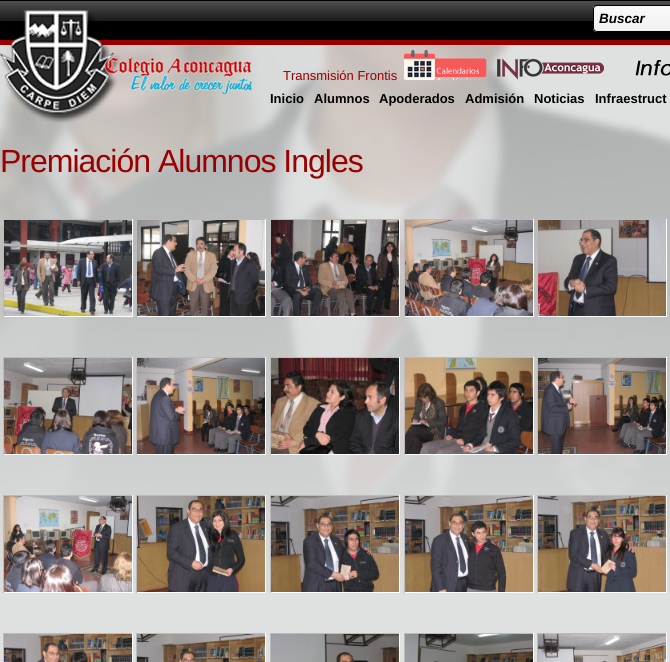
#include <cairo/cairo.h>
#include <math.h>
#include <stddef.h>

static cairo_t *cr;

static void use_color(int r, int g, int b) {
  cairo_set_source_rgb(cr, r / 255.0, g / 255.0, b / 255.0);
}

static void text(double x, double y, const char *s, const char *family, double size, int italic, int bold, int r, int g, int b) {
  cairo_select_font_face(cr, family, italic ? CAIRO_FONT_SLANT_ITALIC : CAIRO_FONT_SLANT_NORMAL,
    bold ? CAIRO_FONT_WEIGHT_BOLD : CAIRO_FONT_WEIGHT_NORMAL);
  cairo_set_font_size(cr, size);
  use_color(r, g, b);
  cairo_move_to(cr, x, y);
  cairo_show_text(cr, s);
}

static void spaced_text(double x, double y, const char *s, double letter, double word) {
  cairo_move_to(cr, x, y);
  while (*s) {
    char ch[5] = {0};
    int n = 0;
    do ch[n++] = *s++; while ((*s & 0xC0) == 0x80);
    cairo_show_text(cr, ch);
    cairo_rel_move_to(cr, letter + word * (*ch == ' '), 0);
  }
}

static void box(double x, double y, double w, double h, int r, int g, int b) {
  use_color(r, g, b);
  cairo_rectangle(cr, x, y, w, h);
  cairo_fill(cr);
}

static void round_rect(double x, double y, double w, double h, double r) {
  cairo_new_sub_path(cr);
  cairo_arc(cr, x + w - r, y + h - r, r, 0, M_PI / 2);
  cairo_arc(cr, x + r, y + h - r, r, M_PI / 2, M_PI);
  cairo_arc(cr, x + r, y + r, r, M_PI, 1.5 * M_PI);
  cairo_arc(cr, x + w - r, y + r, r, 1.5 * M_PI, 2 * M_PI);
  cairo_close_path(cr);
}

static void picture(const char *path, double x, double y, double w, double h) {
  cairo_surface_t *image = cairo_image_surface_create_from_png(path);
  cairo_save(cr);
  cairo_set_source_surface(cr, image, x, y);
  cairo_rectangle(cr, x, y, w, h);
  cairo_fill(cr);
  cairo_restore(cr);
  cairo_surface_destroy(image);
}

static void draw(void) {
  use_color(223, 225, 224);
  cairo_paint(cr);
  picture("img_01.png", 0, 45, 670, 547);
  picture("img_02.png", 0, 0, 670, 45);
  picture("img_03.png", 0, 10, 253, 113);
  picture("img_04.png", 593, 6, 77, 26);
  round_rect(593.5, 5.5, 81, 26, 3.5);
  use_color(0, 0, 0);
  cairo_set_line_width(cr, 1);
  cairo_stroke(cr);
  picture("img_05.png", 404, 50, 83, 30);
  picture("img_06.png", 497, 58, 107, 22);
  picture("img_07.png", 635, 60, 35, 16);
  box(3, 219, 89, 1, 187, 187, 187);
  box(132, 219, 1, 98, 255, 255, 255);
  box(3, 316, 130, 1, 255, 255, 255);
  box(3, 219, 1, 98, 187, 187, 187);
  picture("img_08.png", 4, 220, 128, 96);
  box(136, 219, 62, 1, 187, 187, 187);
  box(265, 219, 1, 98, 255, 255, 255);
  box(136, 316, 130, 1, 255, 255, 255);
  box(136, 236, 1, 81, 187, 187, 187);
  picture("img_09.png", 137, 220, 128, 96);
  box(270, 219, 130, 1, 187, 187, 187);
  box(399, 219, 1, 98, 255, 255, 255);
  box(270, 316, 130, 1, 255, 255, 255);
  box(270, 219, 1, 98, 187, 187, 187);
  picture("img_10.png", 271, 220, 128, 96);
  box(404, 219, 130, 1, 187, 187, 187);
  box(533, 219, 1, 98, 255, 255, 255);
  box(404, 316, 130, 1, 255, 255, 255);
  box(404, 219, 1, 98, 187, 187, 187);
  picture("img_11.png", 405, 220, 128, 96);
  box(537, 219, 130, 1, 187, 187, 187);
  box(666, 219, 1, 98, 255, 255, 255);
  box(537, 316, 130, 1, 255, 255, 255);
  box(537, 219, 1, 98, 187, 187, 187);
  picture("img_12.png", 538, 220, 128, 96);
  box(3, 357, 130, 1, 187, 187, 187);
  box(132, 357, 1, 98, 255, 255, 255);
  box(3, 454, 130, 1, 255, 255, 255);
  box(3, 357, 1, 98, 187, 187, 187);
  picture("img_13.png", 4, 358, 128, 96);
  box(136, 357, 130, 1, 187, 187, 187);
  box(265, 357, 1, 98, 255, 255, 255);
  box(136, 454, 130, 1, 255, 255, 255);
  box(136, 357, 1, 98, 187, 187, 187);
  picture("img_14.png", 137, 358, 128, 96);
  box(270, 357, 130, 1, 187, 187, 187);
  box(399, 357, 1, 98, 255, 255, 255);
  box(270, 454, 130, 1, 255, 255, 255);
  box(270, 357, 1, 98, 187, 187, 187);
  picture("img_15.png", 271, 358, 128, 96);
  box(404, 357, 130, 1, 187, 187, 187);
  box(533, 357, 1, 98, 255, 255, 255);
  box(404, 454, 130, 1, 255, 255, 255);
  box(404, 357, 1, 98, 187, 187, 187);
  picture("img_16.png", 405, 358, 128, 96);
  box(537, 357, 130, 1, 187, 187, 187);
  box(666, 357, 1, 98, 255, 255, 255);
  box(537, 454, 130, 1, 255, 255, 255);
  box(537, 357, 1, 98, 187, 187, 187);
  picture("img_17.png", 538, 358, 128, 96);
  box(3, 495, 130, 1, 187, 187, 187);
  box(132, 495, 1, 98, 255, 255, 255);
  box(3, 592, 130, 1, 255, 255, 255);
  box(3, 495, 1, 98, 187, 187, 187);
  picture("img_18.png", 4, 496, 128, 96);
  box(136, 495, 130, 1, 187, 187, 187);
  box(265, 495, 1, 98, 255, 255, 255);
  box(136, 592, 130, 1, 255, 255, 255);
  box(136, 495, 1, 98, 187, 187, 187);
  picture("img_19.png", 137, 496, 128, 96);
  box(270, 495, 130, 1, 187, 187, 187);
  box(399, 495, 1, 98, 255, 255, 255);
  box(270, 592, 130, 1, 255, 255, 255);
  box(270, 495, 1, 98, 187, 187, 187);
  picture("img_20.png", 271, 496, 128, 96);
  box(404, 495, 130, 1, 187, 187, 187);
  box(533, 495, 1, 98, 255, 255, 255);
  box(404, 592, 130, 1, 255, 255, 255);
  box(404, 495, 1, 98, 187, 187, 187);
  picture("img_21.png", 405, 496, 128, 96);
  box(537, 495, 130, 1, 187, 187, 187);
  box(666, 495, 1, 98, 255, 255, 255);
  box(537, 592, 130, 1, 255, 255, 255);
  box(537, 495, 1, 98, 187, 187, 187);
  picture("img_22.png", 538, 496, 128, 96);
  box(3, 633, 130, 1, 187, 187, 187);
  box(3, 633, 1, 29, 187, 187, 187);
  picture("img_23.png", 4, 634, 128, 28);
  box(132, 633, 1, 29, 255, 255, 255);
  box(136, 633, 130, 1, 187, 187, 187);
  box(136, 633, 1, 29, 187, 187, 187);
  picture("img_24.png", 137, 634, 128, 28);
  box(265, 633, 1, 29, 255, 255, 255);
  box(270, 633, 130, 1, 187, 187, 187);
  box(270, 633, 1, 29, 187, 187, 187);
  picture("img_25.png", 271, 634, 128, 28);
  box(399, 633, 1, 29, 255, 255, 255);
  box(404, 633, 130, 1, 187, 187, 187);
  box(404, 633, 1, 29, 187, 187, 187);
  picture("img_26.png", 405, 634, 128, 28);
  box(533, 633, 1, 29, 255, 255, 255);
  box(537, 633, 130, 1, 187, 187, 187);
  box(537, 633, 1, 29, 187, 187, 187);
  picture("img_27.png", 538, 634, 128, 28);
  box(666, 633, 1, 29, 255, 255, 255);
  text(599, 23, "Buscar", "Liberation Sans", 13.5, 1, 1, 0, 0, 0);
  text(283, 80, "Transmisión Frontis", "Liberation Sans", 13, 0, 0, 153, 0, 0);
  text(270, 103, "Inicio", "Liberation Sans", 13, 0, 1, 0, 0, 0);
  text(314, 103, "Alumnos", "Liberation Sans", 13, 0, 1, 0, 0, 0);
  text(379, 103, "Apoderados", "Liberation Sans", 13, 0, 1, 0, 0, 0);
  text(465, 103, "Admisión", "Liberation Sans", 13, 0, 1, 0, 0, 0);
  text(534, 103, "Noticias", "Liberation Sans", 13, 0, 1, 0, 0, 0);
  text(595, 103, "Infraestruct", "Liberation Sans", 13, 0, 1, 0, 0, 0);
  cairo_select_font_face(cr, "Liberation Sans", CAIRO_FONT_SLANT_NORMAL, CAIRO_FONT_WEIGHT_NORMAL);
  cairo_set_font_size(cr, 32);
  use_color(153, 0, 0);
  spaced_text(0, 172, "Premiación Alumnos Ingles", -1, 0);
}

int main(void) {
  cairo_surface_t *surface = cairo_image_surface_create(CAIRO_FORMAT_RGB24, 670, 662);
  cr = cairo_create(surface);
  cairo_font_options_t *options = cairo_font_options_create();
  cairo_font_options_set_hint_metrics(options, CAIRO_HINT_METRICS_OFF);
  cairo_font_options_set_hint_style(options, CAIRO_HINT_STYLE_NONE);
  cairo_set_font_options(cr, options);
  cairo_set_miter_limit(cr, 4);
  draw();
  cairo_surface_write_to_png(surface, "out.png");
  cairo_font_options_destroy(options);
  cairo_destroy(cr);
  cairo_surface_destroy(surface);
  return 0;
}
